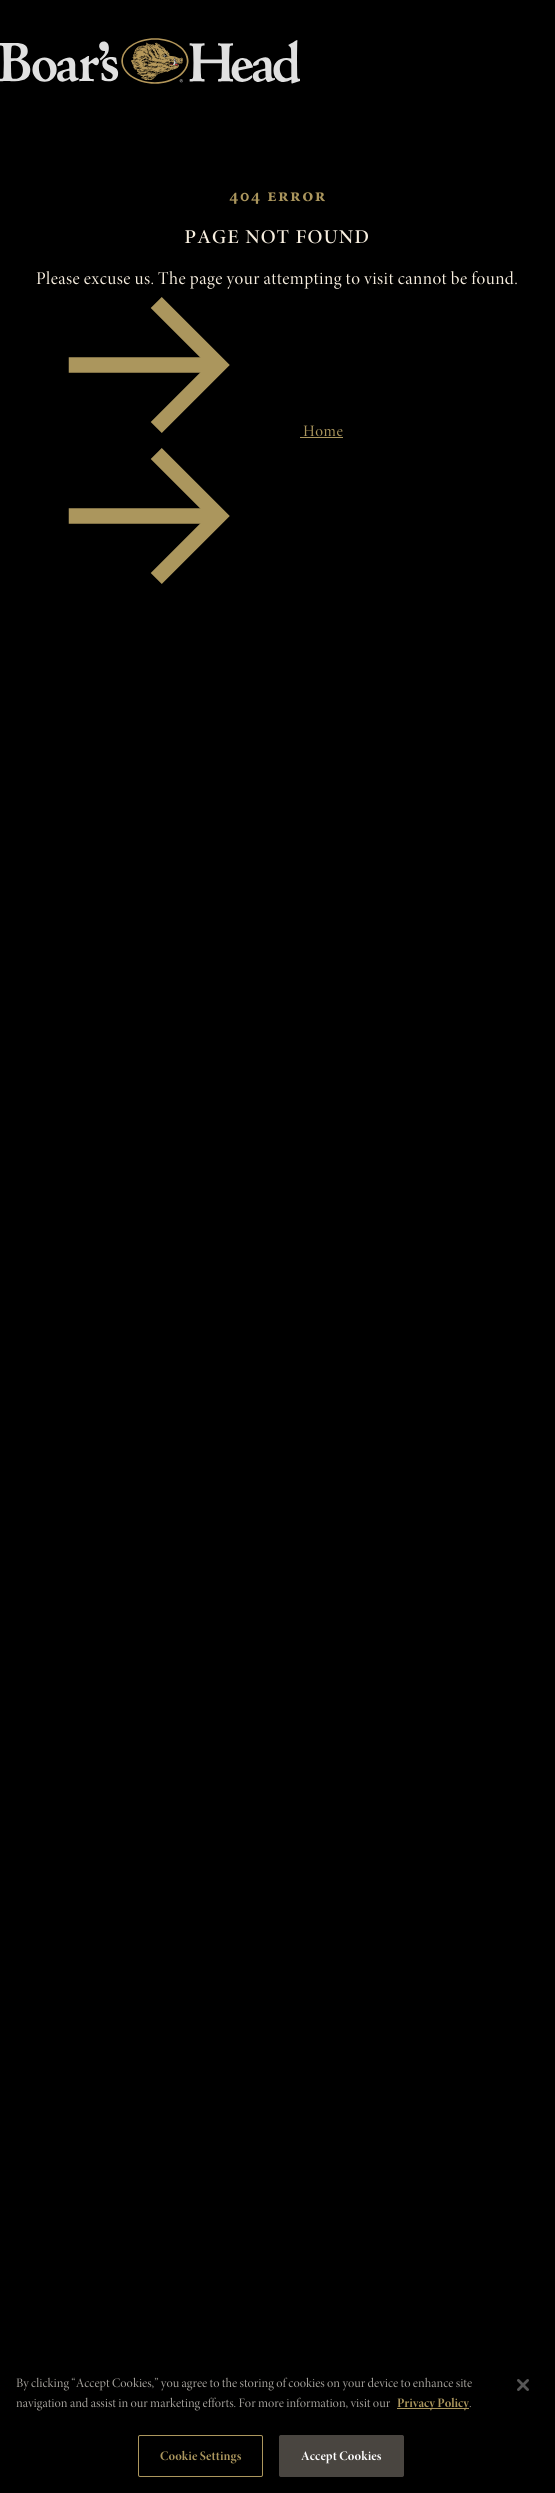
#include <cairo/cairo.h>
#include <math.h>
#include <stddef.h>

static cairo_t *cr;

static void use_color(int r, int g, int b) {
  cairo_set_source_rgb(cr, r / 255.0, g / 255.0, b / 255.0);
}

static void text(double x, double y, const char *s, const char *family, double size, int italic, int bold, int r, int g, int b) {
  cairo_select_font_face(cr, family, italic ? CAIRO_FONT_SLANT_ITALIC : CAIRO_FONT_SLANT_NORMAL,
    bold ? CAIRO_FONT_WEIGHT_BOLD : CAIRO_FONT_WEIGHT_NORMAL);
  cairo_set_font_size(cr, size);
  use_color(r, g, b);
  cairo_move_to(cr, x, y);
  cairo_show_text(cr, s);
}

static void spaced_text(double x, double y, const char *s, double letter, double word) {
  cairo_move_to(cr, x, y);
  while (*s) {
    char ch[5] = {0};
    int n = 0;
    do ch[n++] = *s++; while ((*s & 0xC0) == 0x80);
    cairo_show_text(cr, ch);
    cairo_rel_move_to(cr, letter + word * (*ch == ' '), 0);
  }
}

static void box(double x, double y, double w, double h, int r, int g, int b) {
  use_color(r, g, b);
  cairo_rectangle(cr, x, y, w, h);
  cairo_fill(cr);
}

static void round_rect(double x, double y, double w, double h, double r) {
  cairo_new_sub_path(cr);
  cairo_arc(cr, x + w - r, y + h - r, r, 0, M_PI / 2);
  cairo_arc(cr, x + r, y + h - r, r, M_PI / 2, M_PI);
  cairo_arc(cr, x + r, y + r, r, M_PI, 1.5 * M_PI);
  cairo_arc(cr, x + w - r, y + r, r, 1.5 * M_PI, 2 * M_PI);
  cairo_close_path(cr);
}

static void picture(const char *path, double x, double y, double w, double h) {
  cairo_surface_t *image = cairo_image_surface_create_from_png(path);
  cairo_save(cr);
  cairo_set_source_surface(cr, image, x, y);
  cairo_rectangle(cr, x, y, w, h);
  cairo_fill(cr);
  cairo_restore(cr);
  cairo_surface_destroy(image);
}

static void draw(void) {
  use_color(0, 0, 0);
  cairo_paint(cr);
  picture("img_01.png", 0, 38, 300, 46);
  picture("img_02.png", 68, 297, 162, 136);
  box(300, 437, 43, 1, 171, 150, 93);
  picture("img_02.png", 68, 448, 162, 136);
  box(397, 2408, 72, 1, 171, 150, 93);
  round_rect(138.5, 2435.5, 124, 41, 1.5);
  cairo_set_line_width(cr, 1);
  cairo_stroke(cr);
  use_color(73, 69, 64);
  round_rect(279.5, 2435.5, 124, 41, 1.5);
  cairo_fill_preserve(cr);
  cairo_stroke(cr);
  picture("img_03.png", 517, 2379, 12, 12);
  cairo_select_font_face(cr, "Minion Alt", CAIRO_FONT_SLANT_NORMAL, CAIRO_FONT_WEIGHT_BOLD);
  cairo_set_font_size(cr, 18);
  use_color(171, 150, 93);
  spaced_text(229, 201, "404 error", 1.5, 0);
  cairo_select_font_face(cr, "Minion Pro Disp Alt", CAIRO_FONT_SLANT_NORMAL, CAIRO_FONT_WEIGHT_NORMAL);
  cairo_set_font_size(cr, 28);
  use_color(247, 238, 223);
  spaced_text(184, 243, "page not found", 0.5, 0);
  cairo_select_font_face(cr, "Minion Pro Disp", CAIRO_FONT_SLANT_NORMAL, CAIRO_FONT_WEIGHT_NORMAL);
  cairo_set_font_size(cr, 18);
  spaced_text(36, 284, "Please excuse us. The page your attempting to visit cannot be found.", 0.45, 0);
  cairo_set_font_size(cr, 16);
  use_color(171, 150, 93);
  spaced_text(303, 436, "Home", 0.5, 0);
  text(16, 2387, "By clicking “Accept Cookies,” you agree to the storing of cookies on your device to enhance site", "Minion Pro Disp", 13, 0, 0, 167, 164, 158);
  text(16, 2407, "navigation and assist in our marketing efforts. For more information, visit our", "Minion Pro Disp", 13, 0, 0, 167, 164, 158);
  text(397, 2407, "Privacy Policy", "Minion Pro Disp", 13, 0, 1, 171, 150, 93);
  text(469, 2407, ".", "Minion Pro Disp", 13, 0, 0, 167, 164, 158);
  cairo_select_font_face(cr, "Minion Pro Disp", CAIRO_FONT_SLANT_NORMAL, CAIRO_FONT_WEIGHT_BOLD);
  use_color(171, 150, 93);
  spaced_text(160, 2460, "Cookie Settings", 0.1, 0);
  use_color(255, 255, 255);
  spaced_text(301, 2460, "Accept Cookies", 0.1, 0);
}

int main(void) {
  cairo_surface_t *surface = cairo_image_surface_create(CAIRO_FORMAT_RGB24, 555, 2493);
  cr = cairo_create(surface);
  cairo_font_options_t *options = cairo_font_options_create();
  cairo_font_options_set_hint_metrics(options, CAIRO_HINT_METRICS_OFF);
  cairo_font_options_set_hint_style(options, CAIRO_HINT_STYLE_NONE);
  cairo_set_font_options(cr, options);
  cairo_set_miter_limit(cr, 4);
  draw();
  cairo_surface_write_to_png(surface, "out.png");
  cairo_font_options_destroy(options);
  cairo_destroy(cr);
  cairo_surface_destroy(surface);
  return 0;
}
